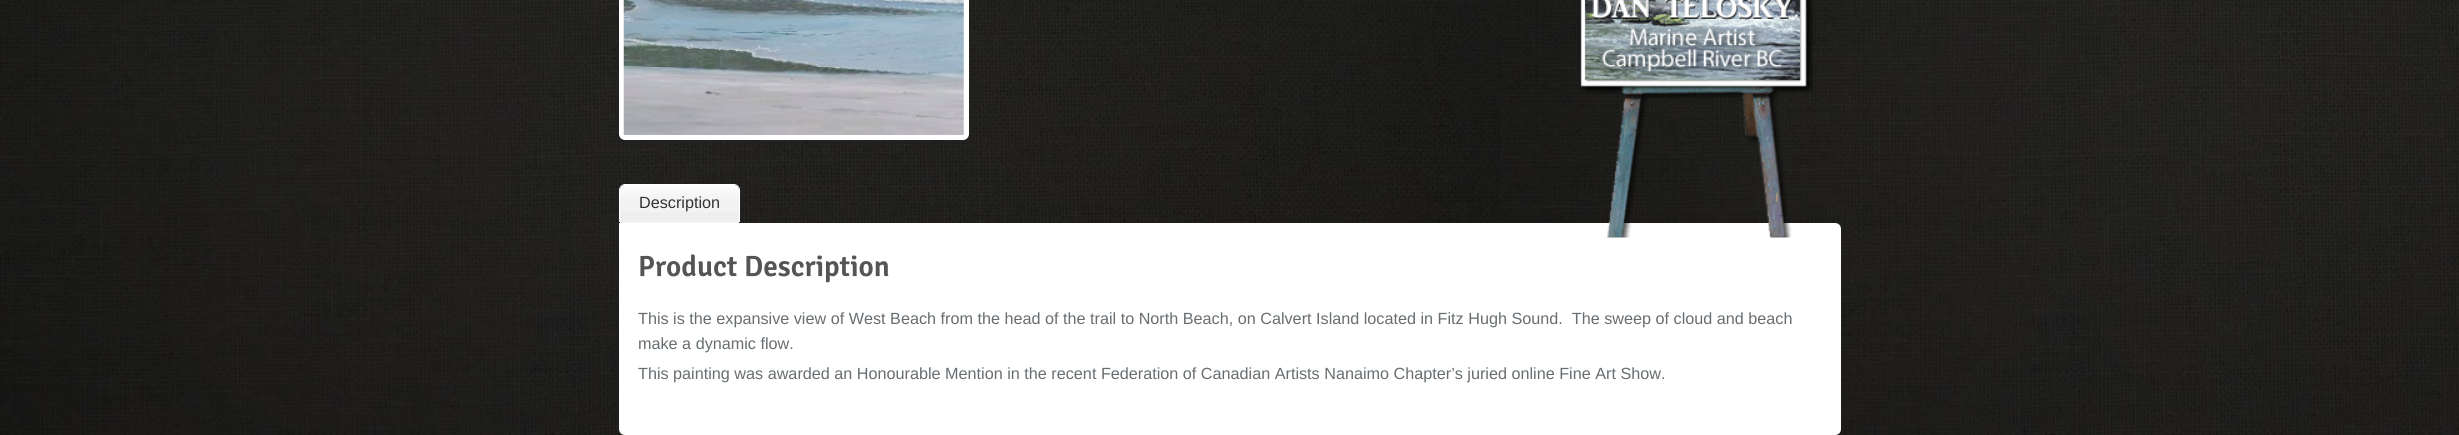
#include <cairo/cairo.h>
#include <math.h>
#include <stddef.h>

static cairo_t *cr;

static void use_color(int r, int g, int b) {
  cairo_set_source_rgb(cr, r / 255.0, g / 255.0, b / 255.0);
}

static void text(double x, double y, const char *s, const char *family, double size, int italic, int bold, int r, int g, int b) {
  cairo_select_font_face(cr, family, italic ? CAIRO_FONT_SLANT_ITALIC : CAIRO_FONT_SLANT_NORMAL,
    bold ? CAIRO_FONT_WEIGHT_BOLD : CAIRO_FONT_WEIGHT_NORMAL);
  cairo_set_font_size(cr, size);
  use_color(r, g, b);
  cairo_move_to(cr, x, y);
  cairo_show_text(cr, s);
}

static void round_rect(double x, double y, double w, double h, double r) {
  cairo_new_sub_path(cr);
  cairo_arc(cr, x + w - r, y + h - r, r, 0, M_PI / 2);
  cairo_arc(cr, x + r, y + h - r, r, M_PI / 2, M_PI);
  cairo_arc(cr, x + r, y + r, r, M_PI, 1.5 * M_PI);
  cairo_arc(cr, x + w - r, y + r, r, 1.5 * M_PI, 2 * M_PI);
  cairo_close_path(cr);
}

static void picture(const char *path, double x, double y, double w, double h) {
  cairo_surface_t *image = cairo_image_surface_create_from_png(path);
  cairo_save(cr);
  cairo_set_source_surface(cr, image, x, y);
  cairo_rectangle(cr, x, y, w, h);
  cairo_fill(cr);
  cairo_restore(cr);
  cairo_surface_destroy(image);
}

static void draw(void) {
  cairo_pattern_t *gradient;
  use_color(255, 255, 255);
  cairo_paint(cr);
  picture("img_01.png", 0, 0, 2459, 435);
  use_color(255, 255, 255);
  cairo_new_path(cr);
  cairo_move_to(cr, 619, 223);
  cairo_line_to(cr, 1835, 223);
  cairo_curve_to(cr, 1838.5, 223, 1841, 225.5, 1841, 229);
  cairo_line_to(cr, 1841, 429);
  cairo_curve_to(cr, 1841, 432.5, 1838.5, 435, 1835, 435);
  cairo_line_to(cr, 625, 435);
  cairo_curve_to(cr, 621.5, 435, 619, 432.5, 619, 429);
  cairo_close_path(cr);
  cairo_fill(cr);
  picture("img_02.png", 1579, 0, 235, 238);
  round_rect(619, -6, 350, 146, 6);
  cairo_fill(cr);
  picture("img_03.png", 623, 0, 341, 135);
  cairo_new_path(cr);
  cairo_move_to(cr, 625, 185);
  cairo_line_to(cr, 734, 185);
  cairo_curve_to(cr, 737, 185, 739, 187, 739, 190);
  cairo_line_to(cr, 739, 223);
  cairo_line_to(cr, 620, 223);
  cairo_line_to(cr, 620, 190);
  cairo_curve_to(cr, 620, 187, 622, 185, 625, 185);
  cairo_close_path(cr);
  cairo_fill(cr);
  gradient = cairo_pattern_create_linear(679, 185, 679, 223);
  cairo_pattern_add_color_stop_rgba(gradient, 0, 1, 1, 1, 0.35);
  cairo_pattern_add_color_stop_rgba(gradient, 0.66, 0.667, 0.667, 0.667, 0.15);
  cairo_pattern_add_color_stop_rgba(gradient, 1, 0, 0, 0, 0.05);
  cairo_set_source(cr, gradient);
  cairo_pattern_destroy(gradient);
  cairo_new_path(cr);
  cairo_move_to(cr, 625, 185);
  cairo_line_to(cr, 734, 185);
  cairo_curve_to(cr, 737, 185, 739, 187, 739, 190);
  cairo_line_to(cr, 739, 223);
  cairo_line_to(cr, 620, 223);
  cairo_line_to(cr, 620, 190);
  cairo_curve_to(cr, 620, 187, 622, 185, 625, 185);
  cairo_close_path(cr);
  cairo_fill(cr);
  use_color(255, 255, 255);
  cairo_set_fill_rule(cr, CAIRO_FILL_RULE_EVEN_ODD);
  cairo_new_path(cr);
  cairo_move_to(cr, 625, 184);
  cairo_line_to(cr, 734, 184);
  cairo_curve_to(cr, 737, 184, 740, 187, 740, 190);
  cairo_line_to(cr, 740, 222);
  cairo_line_to(cr, 619, 222);
  cairo_line_to(cr, 619, 190);
  cairo_curve_to(cr, 619, 187, 622, 184, 625, 184);
  cairo_close_path(cr);
  cairo_move_to(cr, 625, 185);
  cairo_line_to(cr, 734, 185);
  cairo_curve_to(cr, 737, 185, 739, 187, 739, 190);
  cairo_line_to(cr, 739, 222);
  cairo_line_to(cr, 620, 222);
  cairo_line_to(cr, 620, 190);
  cairo_curve_to(cr, 620, 187, 622, 185, 625, 185);
  cairo_close_path(cr);
  cairo_fill(cr);
  text(639, 208, "Description", "Liberation Sans", 16.2, 0, 0, 51, 51, 51);
  text(638, 276, "Product Description", "Signika SemiBold", 29.25, 0, 0, 85, 85, 85);
  text(638, 324, "This is the expansive view of West Beach from the head of the trail to North Beach, on Calvert Island located in Fitz Hugh Sound.  The sweep of cloud and beach", "Liberation Sans", 16.2, 0, 0, 103, 109, 112);
  text(638, 349, "make a dynamic flow.", "Liberation Sans", 16.2, 0, 0, 103, 109, 112);
  text(638, 379, "This painting was awarded an Honourable Mention in the recent Federation of Canadian Artists Nanaimo Chapter’s juried online Fine Art Show.", "Liberation Sans", 16.2, 0, 0, 103, 109, 112);
}

int main(void) {
  cairo_surface_t *surface = cairo_image_surface_create(CAIRO_FORMAT_RGB24, 2459, 435);
  cr = cairo_create(surface);
  cairo_font_options_t *options = cairo_font_options_create();
  cairo_font_options_set_hint_metrics(options, CAIRO_HINT_METRICS_OFF);
  cairo_font_options_set_hint_style(options, CAIRO_HINT_STYLE_NONE);
  cairo_set_font_options(cr, options);
  cairo_set_miter_limit(cr, 4);
  draw();
  cairo_surface_write_to_png(surface, "out.png");
  cairo_font_options_destroy(options);
  cairo_destroy(cr);
  cairo_surface_destroy(surface);
  return 0;
}
